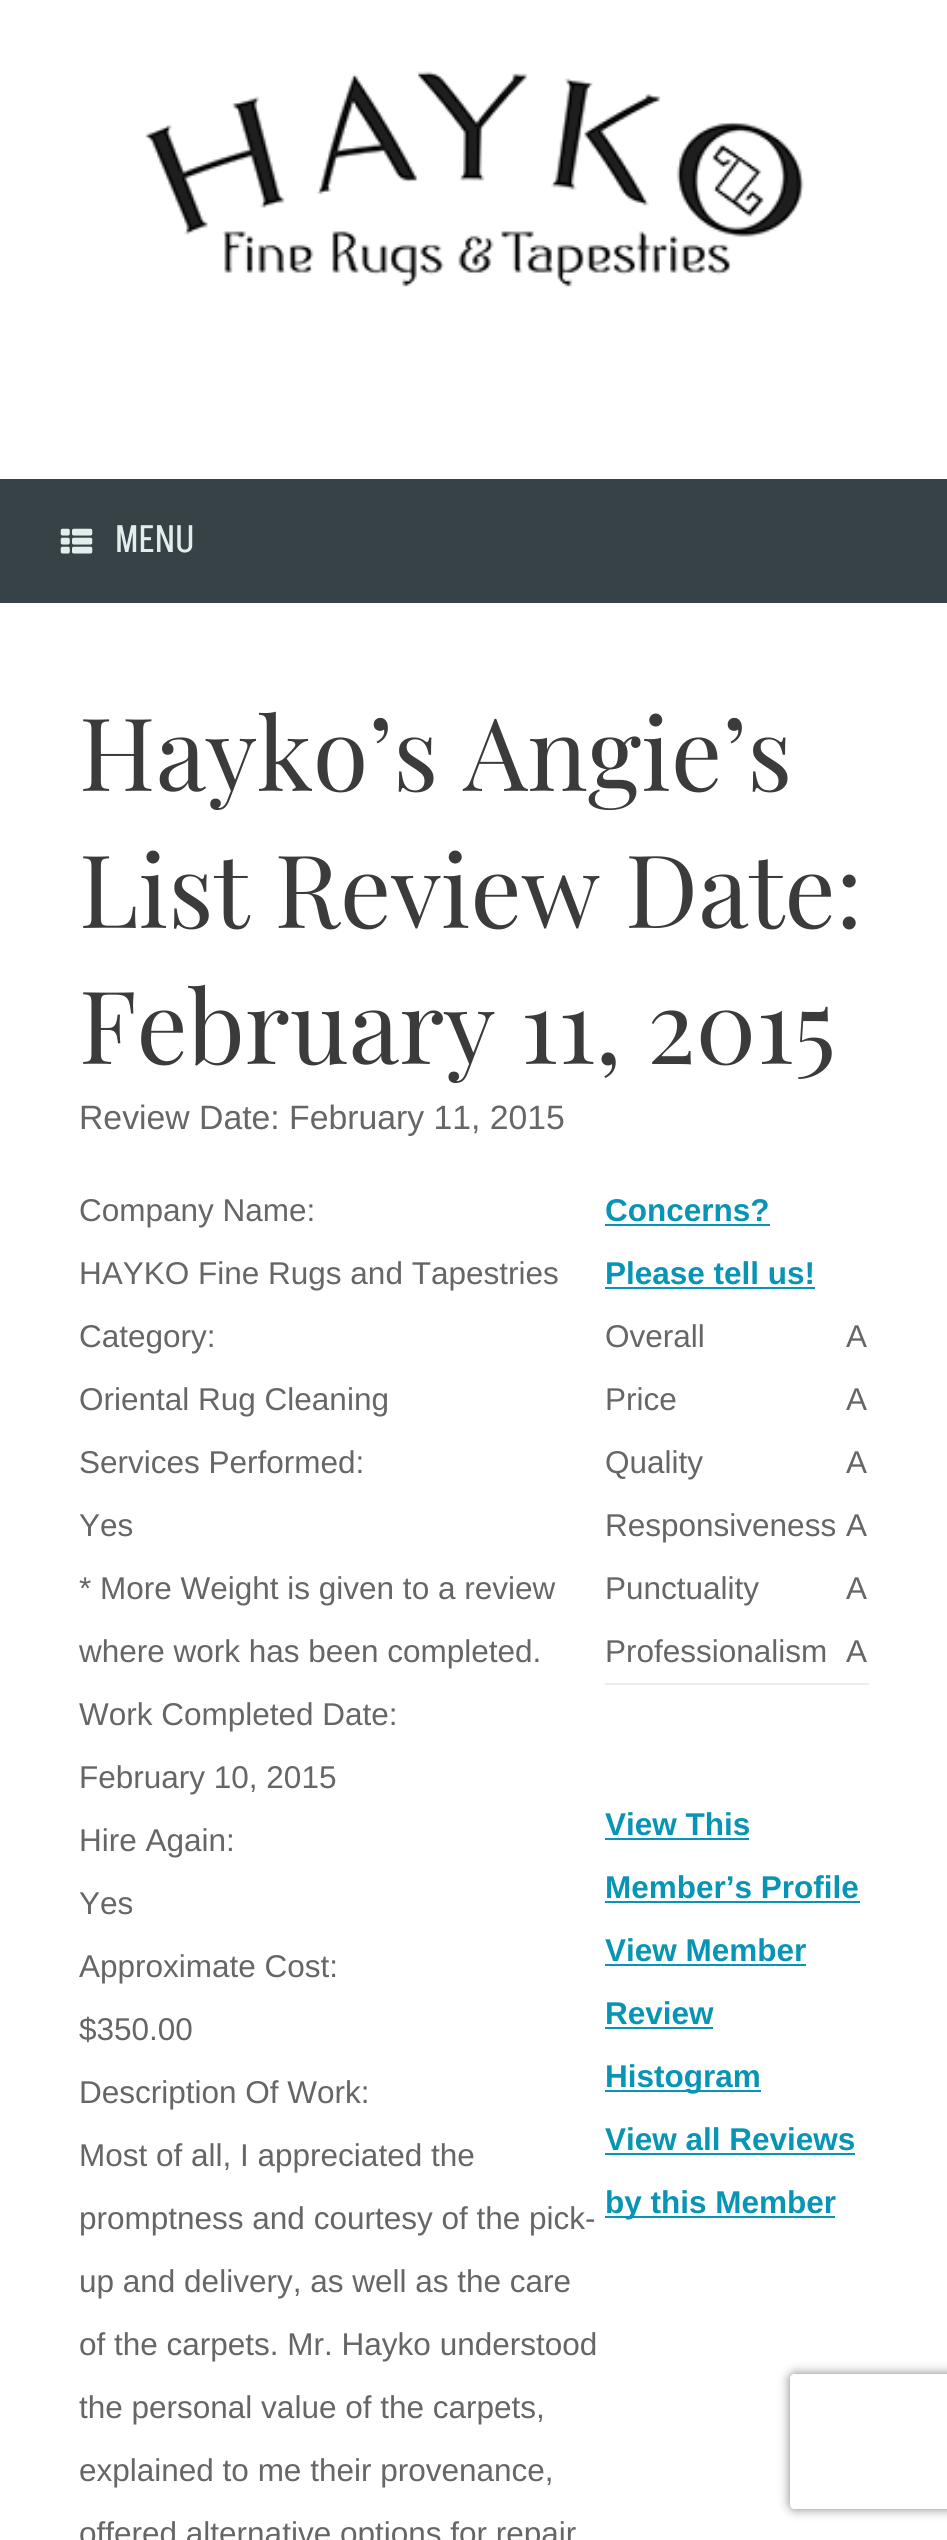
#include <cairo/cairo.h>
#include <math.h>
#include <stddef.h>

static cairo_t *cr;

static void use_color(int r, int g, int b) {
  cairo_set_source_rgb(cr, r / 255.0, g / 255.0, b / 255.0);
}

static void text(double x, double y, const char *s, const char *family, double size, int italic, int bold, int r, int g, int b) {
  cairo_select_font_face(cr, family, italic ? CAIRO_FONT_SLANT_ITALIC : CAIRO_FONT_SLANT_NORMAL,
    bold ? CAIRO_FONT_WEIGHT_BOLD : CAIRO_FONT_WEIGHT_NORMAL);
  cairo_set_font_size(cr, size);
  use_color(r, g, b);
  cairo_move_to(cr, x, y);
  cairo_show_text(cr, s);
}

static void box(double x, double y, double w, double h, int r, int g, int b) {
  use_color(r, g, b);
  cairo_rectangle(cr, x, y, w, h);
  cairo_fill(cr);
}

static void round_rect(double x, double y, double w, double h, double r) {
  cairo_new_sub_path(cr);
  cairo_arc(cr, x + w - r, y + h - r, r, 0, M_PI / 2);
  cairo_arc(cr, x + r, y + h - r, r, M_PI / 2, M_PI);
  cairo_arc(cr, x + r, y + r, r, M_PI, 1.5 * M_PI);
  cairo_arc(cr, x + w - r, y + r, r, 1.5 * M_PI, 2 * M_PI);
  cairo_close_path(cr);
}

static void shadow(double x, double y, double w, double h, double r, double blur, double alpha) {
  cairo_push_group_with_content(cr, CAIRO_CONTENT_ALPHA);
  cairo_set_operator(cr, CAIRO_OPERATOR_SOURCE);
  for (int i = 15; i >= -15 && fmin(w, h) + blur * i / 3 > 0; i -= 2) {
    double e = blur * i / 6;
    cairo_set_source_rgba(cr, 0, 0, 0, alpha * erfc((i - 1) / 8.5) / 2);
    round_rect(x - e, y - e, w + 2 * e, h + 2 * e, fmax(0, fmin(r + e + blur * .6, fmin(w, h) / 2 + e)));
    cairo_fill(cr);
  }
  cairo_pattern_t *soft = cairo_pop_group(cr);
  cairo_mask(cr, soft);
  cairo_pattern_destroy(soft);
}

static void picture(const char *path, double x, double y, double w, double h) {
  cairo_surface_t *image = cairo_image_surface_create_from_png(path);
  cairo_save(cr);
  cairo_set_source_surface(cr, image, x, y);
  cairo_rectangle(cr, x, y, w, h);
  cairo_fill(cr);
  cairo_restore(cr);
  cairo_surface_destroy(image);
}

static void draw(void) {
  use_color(255, 255, 255);
  cairo_paint(cr);
  picture("img_01.png", 145, 71, 659, 216);
  box(0, 479, 947, 124, 54, 66, 69);
  picture("img_02.png", 60, 528, 33, 26);
  box(605, 1224, 165, 2, 8, 148, 180);
  box(605, 1287, 210, 2, 8, 148, 180);
  box(605, 1683, 264, 2, 237, 237, 237);
  box(605, 1838, 144, 2, 8, 148, 180);
  box(605, 1901, 255, 2, 8, 148, 180);
  box(605, 1964, 201, 2, 8, 148, 180);
  box(605, 2027, 108, 2, 8, 148, 180);
  box(605, 2090, 156, 2, 8, 148, 180);
  box(605, 2153, 250, 2, 8, 148, 180);
  box(605, 2216, 230, 2, 8, 148, 180);
  cairo_save(cr);
  cairo_set_fill_rule(cr, CAIRO_FILL_RULE_EVEN_ODD);
  cairo_new_path(cr);
  cairo_move_to(cr, 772, 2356);
  cairo_line_to(cr, 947, 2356);
  cairo_line_to(cr, 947, 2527);
  cairo_line_to(cr, 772, 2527);
  cairo_close_path(cr);
  cairo_move_to(cr, 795, 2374);
  cairo_line_to(cr, 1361, 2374);
  cairo_curve_to(cr, 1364, 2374, 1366, 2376, 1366, 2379);
  cairo_line_to(cr, 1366, 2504);
  cairo_curve_to(cr, 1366, 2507, 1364, 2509, 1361, 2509);
  cairo_line_to(cr, 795, 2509);
  cairo_curve_to(cr, 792, 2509, 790, 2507, 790, 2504);
  cairo_line_to(cr, 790, 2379);
  cairo_curve_to(cr, 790, 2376, 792, 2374, 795, 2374);
  cairo_close_path(cr);
  cairo_clip(cr);
  use_color(128, 128, 128);
  shadow(790, 2374, 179, 135, 5, 5.5, 1);
  cairo_restore(cr);
  text(115, 552, "MENU", "Akshar Light", 38, 0, 0, 227, 237, 236);
  text(79, 791, "Hayko’s Angie’s", "Playfair Display", 101.25, 0, 0, 59, 59, 59);
  text(79, 928, "List Review Date:", "Playfair Display", 101.25, 0, 0, 59, 59, 59);
  text(79, 1064, "February 11, 2015", "Playfair Display", 101.25, 0, 0, 59, 59, 59);
  text(79, 1129, "Review Date: February 11, 2015", "Liberation Sans", 33.75, 0, 0, 102, 102, 102);
  text(79, 1221, "Company Name:", "Liberation Sans", 31.5, 0, 0, 102, 102, 102);
  text(79, 1284, "HAYKO Fine Rugs and Tapestries", "Liberation Sans", 31.5, 0, 0, 102, 102, 102);
  text(79, 1347, "Category:", "Liberation Sans", 31.5, 0, 0, 102, 102, 102);
  text(79, 1410, "Oriental Rug Cleaning", "Liberation Sans", 31.5, 0, 0, 102, 102, 102);
  text(79, 1473, "Services Performed:", "Liberation Sans", 31.5, 0, 0, 102, 102, 102);
  text(79, 1536, "Yes", "Liberation Sans", 31.5, 0, 0, 102, 102, 102);
  text(79, 1599, "* More Weight is given to a review", "Liberation Sans", 31.5, 0, 0, 102, 102, 102);
  text(79, 1662, "where work has been completed.", "Liberation Sans", 31.5, 0, 0, 102, 102, 102);
  text(79, 1725, "Work Completed Date:", "Liberation Sans", 31.5, 0, 0, 102, 102, 102);
  text(79, 1788, "February 10, 2015", "Liberation Sans", 31.5, 0, 0, 102, 102, 102);
  text(79, 1851, "Hire Again:", "Liberation Sans", 31.5, 0, 0, 102, 102, 102);
  text(79, 1914, "Yes", "Liberation Sans", 31.5, 0, 0, 102, 102, 102);
  text(79, 1977, "Approximate Cost:", "Liberation Sans", 31.5, 0, 0, 102, 102, 102);
  text(79, 2040, "$350.00", "Liberation Sans", 31.5, 0, 0, 102, 102, 102);
  text(79, 2103, "Description Of Work:", "Liberation Sans", 31.5, 0, 0, 102, 102, 102);
  text(79, 2166, "Most of all, I appreciated the", "Liberation Sans", 31.5, 0, 0, 102, 102, 102);
  text(79, 2229, "promptness and courtesy of the pick-", "Liberation Sans", 31.5, 0, 0, 102, 102, 102);
  text(79, 2292, "up and delivery, as well as the care", "Liberation Sans", 31.5, 0, 0, 102, 102, 102);
  text(79, 2355, "of the carpets. Mr. Hayko understood", "Liberation Sans", 31.5, 0, 0, 102, 102, 102);
  text(79, 2418, "the personal value of the carpets,", "Liberation Sans", 31.5, 0, 0, 102, 102, 102);
  text(79, 2481, "explained to me their provenance,", "Liberation Sans", 31.5, 0, 0, 102, 102, 102);
  text(79, 2544, "offered alternative options for repair", "Liberation Sans", 31.5, 0, 0, 102, 102, 102);
  text(605, 1221, "Concerns?", "Liberation Sans", 31.5, 0, 1, 8, 148, 180);
  text(605, 1284, "Please tell us!", "Liberation Sans", 31.5, 0, 1, 8, 148, 180);
  text(605, 1347, "Overall", "Liberation Sans", 31.5, 0, 0, 102, 102, 102);
  text(846, 1347, "A", "Liberation Sans", 31.5, 0, 0, 102, 102, 102);
  text(605, 1410, "Price", "Liberation Sans", 31.5, 0, 0, 102, 102, 102);
  text(846, 1410, "A", "Liberation Sans", 31.5, 0, 0, 102, 102, 102);
  text(605, 1473, "Quality", "Liberation Sans", 31.5, 0, 0, 102, 102, 102);
  text(846, 1473, "A", "Liberation Sans", 31.5, 0, 0, 102, 102, 102);
  text(605, 1536, "Responsiveness", "Liberation Sans", 31.5, 0, 0, 102, 102, 102);
  text(846, 1536, "A", "Liberation Sans", 31.5, 0, 0, 102, 102, 102);
  text(605, 1599, "Punctuality", "Liberation Sans", 31.5, 0, 0, 102, 102, 102);
  text(846, 1599, "A", "Liberation Sans", 31.5, 0, 0, 102, 102, 102);
  text(605, 1662, "Professionalism", "Liberation Sans", 31.5, 0, 0, 102, 102, 102);
  text(846, 1662, "A", "Liberation Sans", 31.5, 0, 0, 102, 102, 102);
  text(605, 1835, "View This", "Liberation Sans", 31.5, 0, 1, 8, 148, 180);
  text(605, 1898, "Member’s Profile", "Liberation Sans", 31.5, 0, 1, 8, 148, 180);
  text(605, 1961, "View Member", "Liberation Sans", 31.5, 0, 1, 8, 148, 180);
  text(605, 2024, "Review", "Liberation Sans", 31.5, 0, 1, 8, 148, 180);
  text(605, 2087, "Histogram", "Liberation Sans", 31.5, 0, 1, 8, 148, 180);
  text(605, 2150, "View all Reviews", "Liberation Sans", 31.5, 0, 1, 8, 148, 180);
  text(605, 2213, "by this Member", "Liberation Sans", 31.5, 0, 1, 8, 148, 180);
}

int main(void) {
  cairo_surface_t *surface = cairo_image_surface_create(CAIRO_FORMAT_RGB24, 947, 2540);
  cr = cairo_create(surface);
  cairo_font_options_t *options = cairo_font_options_create();
  cairo_font_options_set_hint_metrics(options, CAIRO_HINT_METRICS_OFF);
  cairo_font_options_set_hint_style(options, CAIRO_HINT_STYLE_NONE);
  cairo_set_font_options(cr, options);
  cairo_set_miter_limit(cr, 4);
  draw();
  cairo_surface_write_to_png(surface, "out.png");
  cairo_font_options_destroy(options);
  cairo_destroy(cr);
  cairo_surface_destroy(surface);
  return 0;
}
